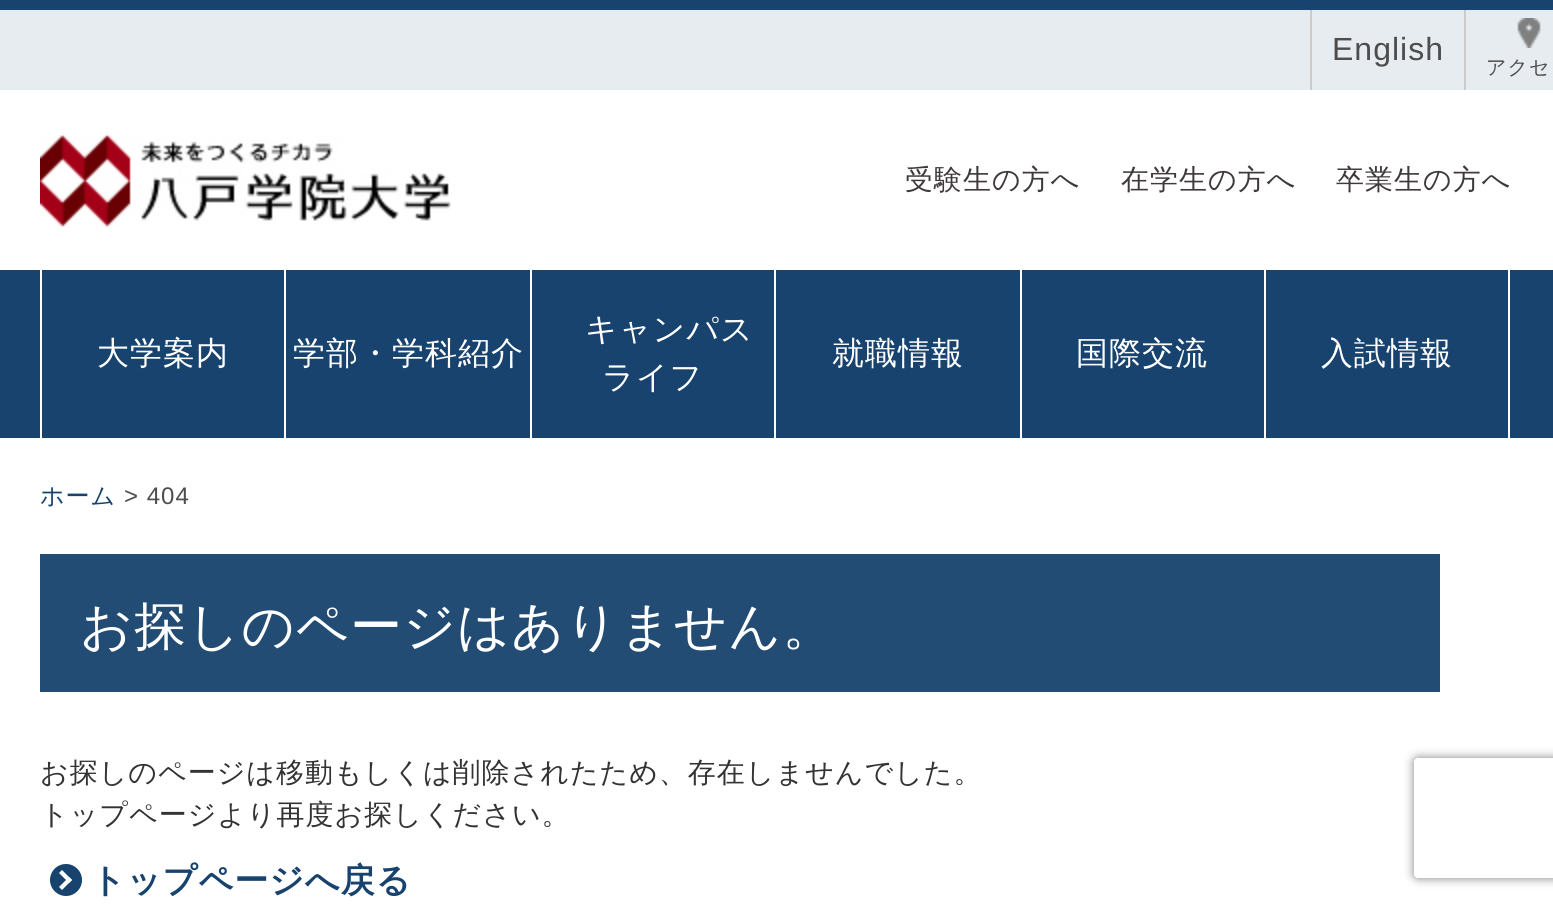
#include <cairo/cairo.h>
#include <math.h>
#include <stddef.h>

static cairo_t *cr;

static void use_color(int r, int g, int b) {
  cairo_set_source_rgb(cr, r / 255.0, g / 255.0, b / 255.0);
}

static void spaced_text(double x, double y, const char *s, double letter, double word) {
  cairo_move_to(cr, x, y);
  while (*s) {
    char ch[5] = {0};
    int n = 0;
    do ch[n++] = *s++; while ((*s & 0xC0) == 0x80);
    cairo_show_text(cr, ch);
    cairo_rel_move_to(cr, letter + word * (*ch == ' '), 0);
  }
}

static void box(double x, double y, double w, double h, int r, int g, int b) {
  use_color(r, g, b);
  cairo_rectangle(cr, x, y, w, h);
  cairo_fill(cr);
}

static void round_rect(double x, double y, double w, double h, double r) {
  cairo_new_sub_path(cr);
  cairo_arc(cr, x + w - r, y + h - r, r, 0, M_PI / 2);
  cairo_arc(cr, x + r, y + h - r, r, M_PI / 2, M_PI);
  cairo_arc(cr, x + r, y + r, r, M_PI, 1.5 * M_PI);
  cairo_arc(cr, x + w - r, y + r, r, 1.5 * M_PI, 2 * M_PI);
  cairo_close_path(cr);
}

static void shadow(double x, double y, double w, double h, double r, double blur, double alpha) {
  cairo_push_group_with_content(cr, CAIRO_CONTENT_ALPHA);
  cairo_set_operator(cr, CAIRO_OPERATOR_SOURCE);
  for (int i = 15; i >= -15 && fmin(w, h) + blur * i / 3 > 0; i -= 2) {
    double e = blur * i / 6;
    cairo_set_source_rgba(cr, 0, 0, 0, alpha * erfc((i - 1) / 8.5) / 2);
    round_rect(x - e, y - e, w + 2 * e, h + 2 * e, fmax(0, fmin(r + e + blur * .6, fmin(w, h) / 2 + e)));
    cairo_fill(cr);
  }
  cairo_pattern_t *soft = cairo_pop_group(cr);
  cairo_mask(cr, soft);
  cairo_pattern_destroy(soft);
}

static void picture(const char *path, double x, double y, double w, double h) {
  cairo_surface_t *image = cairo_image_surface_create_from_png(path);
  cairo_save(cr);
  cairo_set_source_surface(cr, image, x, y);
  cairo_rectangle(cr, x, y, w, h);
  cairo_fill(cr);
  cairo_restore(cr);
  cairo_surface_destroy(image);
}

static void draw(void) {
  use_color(255, 255, 255);
  cairo_paint(cr);
  box(0, 10, 1553, 80, 231, 236, 240);
  box(0, 0, 1553, 10, 24, 67, 110);
  box(1310, 10, 2, 80, 204, 204, 204);
  box(1464, 10, 2, 80, 204, 204, 204);
  picture("img_01.png", 1517, 18, 24, 30);
  picture("img_02.png", 40, 135, 411, 92);
  box(0, 270, 1553, 168, 24, 67, 110);
  box(40, 270, 2, 168, 255, 255, 255);
  box(284, 270, 2, 168, 255, 255, 255);
  box(530, 270, 2, 168, 255, 255, 255);
  box(774, 270, 2, 168, 255, 255, 255);
  box(1020, 270, 2, 168, 255, 255, 255);
  box(1264, 270, 2, 168, 255, 255, 255);
  box(1508, 270, 2, 168, 255, 255, 255);
  box(40, 554, 1400, 138, 35, 76, 116);
  use_color(24, 67, 110);
  cairo_arc(cr, 66, 880, 16, 0, 2 * M_PI);
  cairo_fill(cr);
  use_color(255, 255, 255);
  cairo_new_path(cr);
  cairo_move_to(cr, 62, 870);
  cairo_line_to(cr, 72, 880);
  cairo_line_to(cr, 69, 883);
  cairo_line_to(cr, 59, 873);
  cairo_close_path(cr);
  cairo_fill(cr);
  cairo_new_path(cr);
  cairo_move_to(cr, 69, 877);
  cairo_line_to(cr, 72, 880);
  cairo_line_to(cr, 62, 890);
  cairo_line_to(cr, 59, 887);
  cairo_close_path(cr);
  cairo_fill(cr);
  cairo_save(cr);
  cairo_set_fill_rule(cr, CAIRO_FILL_RULE_EVEN_ODD);
  cairo_new_path(cr);
  cairo_move_to(cr, 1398, 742);
  cairo_line_to(cr, 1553, 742);
  cairo_line_to(cr, 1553, 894);
  cairo_line_to(cr, 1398, 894);
  cairo_close_path(cr);
  cairo_move_to(cr, 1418, 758);
  cairo_line_to(cr, 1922, 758);
  cairo_curve_to(cr, 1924, 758, 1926, 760, 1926, 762);
  cairo_line_to(cr, 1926, 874);
  cairo_curve_to(cr, 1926, 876, 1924, 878, 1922, 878);
  cairo_line_to(cr, 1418, 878);
  cairo_curve_to(cr, 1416, 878, 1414, 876, 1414, 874);
  cairo_line_to(cr, 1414, 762);
  cairo_curve_to(cr, 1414, 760, 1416, 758, 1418, 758);
  cairo_close_path(cr);
  cairo_clip(cr);
  use_color(128, 128, 128);
  shadow(1414, 758, 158, 120, 4, 5, 1);
  cairo_restore(cr);
  cairo_select_font_face(cr, "Liberation Sans", CAIRO_FONT_SLANT_NORMAL, CAIRO_FONT_WEIGHT_NORMAL);
  cairo_set_font_size(cr, 32);
  use_color(77, 77, 77);
  spaced_text(1332, 60, "English", 1, 0);
  cairo_select_font_face(cr, "WenQuanYi Zen Hei Medium", CAIRO_FONT_SLANT_NORMAL, CAIRO_FONT_WEIGHT_NORMAL);
  cairo_set_font_size(cr, 20);
  spaced_text(1486, 74, "アクセ", 1, 0);
  cairo_set_font_size(cr, 28);
  use_color(62, 58, 57);
  spaced_text(905, 189, "受験生の方へ", 1, 0);
  spaced_text(1121, 189, "在学生の方へ", 1, 0);
  spaced_text(1336, 189, "卒業生の方へ", 1, 0);
  cairo_set_font_size(cr, 32);
  use_color(255, 255, 255);
  spaced_text(97, 364, "大学案内", 1, 0);
  spaced_text(293, 364, "学部・学科紹介", 1, 0);
  spaced_text(585, 340, "キャンパス", 1, 0);
  spaced_text(602, 388, "ライフ", 1, 0);
  spaced_text(832, 364, "就職情報", 1, 0);
  spaced_text(1076, 364, "国際交流", 1, 0);
  spaced_text(1321, 364, "入試情報", 1, 0);
  cairo_set_font_size(cr, 24);
  use_color(24, 67, 110);
  spaced_text(40, 504, "ホーム", 1, 0);
  cairo_select_font_face(cr, "Liberation Sans", CAIRO_FONT_SLANT_NORMAL, CAIRO_FONT_WEIGHT_NORMAL);
  use_color(77, 77, 77);
  spaced_text(124, 504, "> 404", 1, 0);
  cairo_select_font_face(cr, "WenQuanYi Zen Hei Medium", CAIRO_FONT_SLANT_NORMAL, CAIRO_FONT_WEIGHT_NORMAL);
  cairo_set_font_size(cr, 52);
  use_color(255, 255, 255);
  spaced_text(80, 644, "お探しのページはありません。", 1, 0);
  cairo_set_font_size(cr, 28);
  use_color(51, 51, 51);
  spaced_text(40, 782, "お探しのページは移動もしくは削除されたため、存在しませんでした。", 1, 0);
  spaced_text(40, 824, "トップページより再度お探しください。", 1, 0);
  cairo_select_font_face(cr, "WenQuanYi Zen Hei", CAIRO_FONT_SLANT_NORMAL, CAIRO_FONT_WEIGHT_BOLD);
  cairo_set_font_size(cr, 34);
  use_color(24, 67, 110);
  spaced_text(91, 892, "トップページへ戻る", 1, 0);
}

int main(void) {
  cairo_surface_t *surface = cairo_image_surface_create(CAIRO_FORMAT_RGB24, 1553, 905);
  cr = cairo_create(surface);
  cairo_font_options_t *options = cairo_font_options_create();
  cairo_font_options_set_hint_metrics(options, CAIRO_HINT_METRICS_OFF);
  cairo_font_options_set_hint_style(options, CAIRO_HINT_STYLE_NONE);
  cairo_set_font_options(cr, options);
  cairo_set_miter_limit(cr, 4);
  draw();
  cairo_surface_write_to_png(surface, "out.png");
  cairo_font_options_destroy(options);
  cairo_destroy(cr);
  cairo_surface_destroy(surface);
  return 0;
}
